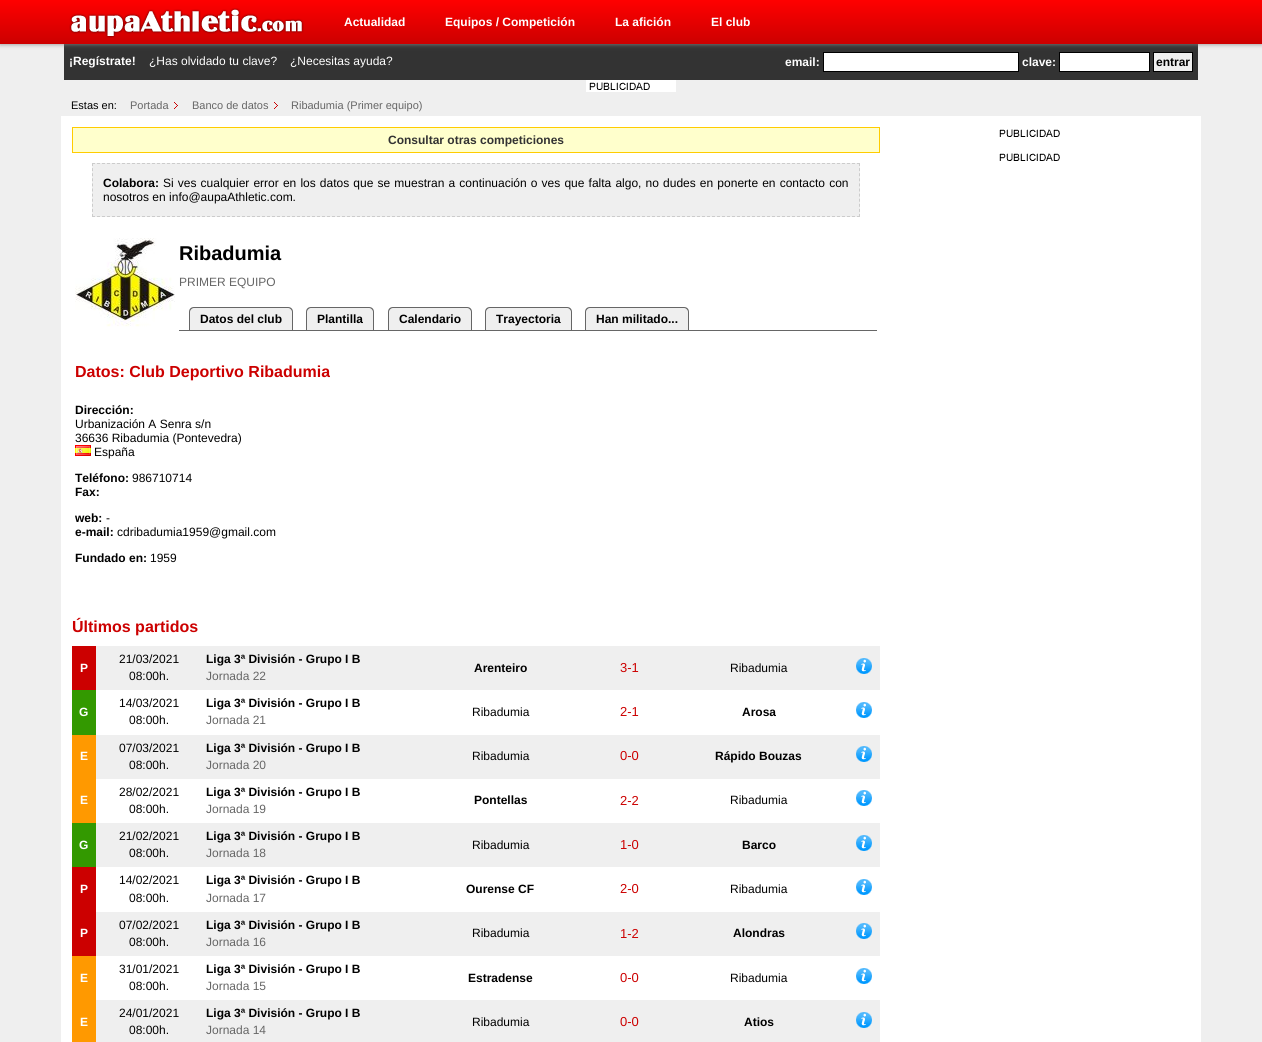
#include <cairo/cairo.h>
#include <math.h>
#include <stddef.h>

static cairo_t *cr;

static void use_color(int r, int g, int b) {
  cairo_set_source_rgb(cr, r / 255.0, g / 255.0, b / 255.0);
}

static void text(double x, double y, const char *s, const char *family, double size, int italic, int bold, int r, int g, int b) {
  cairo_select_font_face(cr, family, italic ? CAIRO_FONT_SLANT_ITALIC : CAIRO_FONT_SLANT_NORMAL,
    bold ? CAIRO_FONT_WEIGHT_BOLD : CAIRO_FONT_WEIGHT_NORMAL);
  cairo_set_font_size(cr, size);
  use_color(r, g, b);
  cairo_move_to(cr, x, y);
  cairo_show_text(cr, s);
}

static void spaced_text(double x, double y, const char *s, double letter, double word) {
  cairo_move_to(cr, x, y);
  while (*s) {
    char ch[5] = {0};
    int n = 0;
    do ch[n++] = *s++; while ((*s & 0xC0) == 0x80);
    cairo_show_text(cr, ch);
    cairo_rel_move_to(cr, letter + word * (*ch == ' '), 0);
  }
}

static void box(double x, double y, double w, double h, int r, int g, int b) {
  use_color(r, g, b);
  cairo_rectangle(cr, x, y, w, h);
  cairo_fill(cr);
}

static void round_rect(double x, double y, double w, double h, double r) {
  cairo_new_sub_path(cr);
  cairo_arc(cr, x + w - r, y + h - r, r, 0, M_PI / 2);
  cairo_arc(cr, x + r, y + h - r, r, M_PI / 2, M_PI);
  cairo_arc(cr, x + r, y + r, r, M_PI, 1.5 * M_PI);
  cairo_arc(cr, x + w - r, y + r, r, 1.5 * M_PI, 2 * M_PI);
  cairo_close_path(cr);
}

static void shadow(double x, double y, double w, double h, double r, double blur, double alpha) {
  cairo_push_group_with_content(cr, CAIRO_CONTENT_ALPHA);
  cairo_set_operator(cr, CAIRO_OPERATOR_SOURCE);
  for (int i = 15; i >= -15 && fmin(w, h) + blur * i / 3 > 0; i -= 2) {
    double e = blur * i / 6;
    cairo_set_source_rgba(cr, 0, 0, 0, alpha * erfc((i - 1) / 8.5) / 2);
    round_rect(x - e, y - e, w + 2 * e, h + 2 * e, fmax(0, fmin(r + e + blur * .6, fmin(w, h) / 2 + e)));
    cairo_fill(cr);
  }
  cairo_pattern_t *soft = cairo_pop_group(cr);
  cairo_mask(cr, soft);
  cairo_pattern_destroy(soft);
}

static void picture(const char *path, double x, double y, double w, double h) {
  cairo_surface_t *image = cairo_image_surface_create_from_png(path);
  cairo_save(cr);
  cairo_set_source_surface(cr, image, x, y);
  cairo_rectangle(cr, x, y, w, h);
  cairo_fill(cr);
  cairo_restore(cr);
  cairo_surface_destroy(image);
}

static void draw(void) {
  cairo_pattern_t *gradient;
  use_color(239, 239, 239);
  cairo_paint(cr);
  box(64, 44, 1134, 36, 51, 51, 51);
  use_color(255, 255, 255);
  cairo_rectangle(cr, 823.5, 52.5, 195, 19);
  cairo_fill_preserve(cr);
  use_color(0, 0, 0);
  cairo_set_line_width(cr, 1);
  cairo_stroke(cr);
  use_color(255, 255, 255);
  cairo_rectangle(cr, 1059.5, 52.5, 90, 19);
  cairo_fill_preserve(cr);
  use_color(0, 0, 0);
  cairo_stroke(cr);
  use_color(239, 239, 239);
  cairo_rectangle(cr, 1153.5, 52.5, 39, 19);
  cairo_fill_preserve(cr);
  use_color(0, 0, 0);
  cairo_stroke(cr);
  use_color(136, 136, 136);
  shadow(0, 0, 1262, 44, 0, 2.5, 1);
  gradient = cairo_pattern_create_linear(631, 0, 631, 44);
  cairo_pattern_add_color_stop_rgba(gradient, 0, 1, 0, 0, 1);
  cairo_pattern_add_color_stop_rgba(gradient, 1, 0.8, 0, 0, 1);
  cairo_set_source(cr, gradient);
  cairo_pattern_destroy(gradient);
  cairo_rectangle(cr, 0, 0, 1262, 44);
  cairo_fill(cr);
  picture("img_01.png", 69, 8, 235, 30);
  picture("img_02.png", 586, 80, 90, 12);
  picture("img_03.png", 174, 102, 4, 7);
  picture("img_03.png", 274, 102, 4, 7);
  box(61, 116, 1140, 926, 255, 255, 255);
  box(72, 127, 808, 26, 255, 204, 0);
  box(73, 128, 806, 24, 255, 255, 204);
  box(92, 163, 768, 54, 239, 239, 239);
  cairo_new_path(cr);
  cairo_move_to(cr, 92, 163.5);
  cairo_line_to(cr, 860, 163.5);
  use_color(204, 204, 204);
  cairo_set_dash(cr, (double[]){3, 2}, 2, 0);
  cairo_stroke(cr);
  cairo_new_path(cr);
  cairo_move_to(cr, 859.5, 163);
  cairo_line_to(cr, 859.5, 217);
  cairo_set_dash(cr, (double[]){3, 2.1}, 2, 0);
  cairo_stroke(cr);
  cairo_new_path(cr);
  cairo_move_to(cr, 92, 216.5);
  cairo_line_to(cr, 860, 216.5);
  cairo_set_dash(cr, (double[]){3, 2}, 2, 0);
  cairo_stroke(cr);
  cairo_new_path(cr);
  cairo_move_to(cr, 92.5, 163);
  cairo_line_to(cr, 92.5, 217);
  cairo_set_dash(cr, (double[]){3, 2.1}, 2, 0);
  cairo_stroke(cr);
  picture("img_04.png", 75, 238, 100, 89);
  box(179, 330, 698, 1, 102, 102, 102);
  use_color(239, 239, 239);
  cairo_new_path(cr);
  cairo_move_to(cr, 194, 308);
  cairo_line_to(cr, 288, 308);
  cairo_curve_to(cr, 290, 308, 292, 310, 292, 312);
  cairo_line_to(cr, 292, 330);
  cairo_line_to(cr, 190, 330);
  cairo_line_to(cr, 190, 312);
  cairo_curve_to(cr, 190, 310, 192, 308, 194, 308);
  cairo_close_path(cr);
  cairo_fill(cr);
  use_color(102, 102, 102);
  cairo_set_fill_rule(cr, CAIRO_FILL_RULE_EVEN_ODD);
  cairo_new_path(cr);
  cairo_move_to(cr, 194, 307);
  cairo_line_to(cr, 288, 307);
  cairo_curve_to(cr, 291, 307, 293, 309, 293, 312);
  cairo_line_to(cr, 293, 330);
  cairo_line_to(cr, 189, 330);
  cairo_line_to(cr, 189, 312);
  cairo_curve_to(cr, 189, 309, 191, 307, 194, 307);
  cairo_close_path(cr);
  cairo_move_to(cr, 194, 308);
  cairo_line_to(cr, 288, 308);
  cairo_curve_to(cr, 290, 308, 292, 310, 292, 312);
  cairo_line_to(cr, 292, 330);
  cairo_line_to(cr, 190, 330);
  cairo_line_to(cr, 190, 312);
  cairo_curve_to(cr, 190, 310, 192, 308, 194, 308);
  cairo_close_path(cr);
  cairo_fill(cr);
  use_color(239, 239, 239);
  cairo_new_path(cr);
  cairo_move_to(cr, 311, 308);
  cairo_line_to(cr, 369, 308);
  cairo_curve_to(cr, 371, 308, 373, 310, 373, 312);
  cairo_line_to(cr, 373, 330);
  cairo_line_to(cr, 307, 330);
  cairo_line_to(cr, 307, 312);
  cairo_curve_to(cr, 307, 310, 309, 308, 311, 308);
  cairo_close_path(cr);
  cairo_fill(cr);
  use_color(102, 102, 102);
  cairo_new_path(cr);
  cairo_move_to(cr, 311, 307);
  cairo_line_to(cr, 369, 307);
  cairo_curve_to(cr, 372, 307, 374, 309, 374, 312);
  cairo_line_to(cr, 374, 330);
  cairo_line_to(cr, 306, 330);
  cairo_line_to(cr, 306, 312);
  cairo_curve_to(cr, 306, 309, 308, 307, 311, 307);
  cairo_close_path(cr);
  cairo_move_to(cr, 311, 308);
  cairo_line_to(cr, 369, 308);
  cairo_curve_to(cr, 371, 308, 373, 310, 373, 312);
  cairo_line_to(cr, 373, 330);
  cairo_line_to(cr, 307, 330);
  cairo_line_to(cr, 307, 312);
  cairo_curve_to(cr, 307, 310, 309, 308, 311, 308);
  cairo_close_path(cr);
  cairo_fill(cr);
  use_color(239, 239, 239);
  cairo_new_path(cr);
  cairo_move_to(cr, 393, 308);
  cairo_line_to(cr, 467, 308);
  cairo_curve_to(cr, 469, 308, 471, 310, 471, 312);
  cairo_line_to(cr, 471, 330);
  cairo_line_to(cr, 389, 330);
  cairo_line_to(cr, 389, 312);
  cairo_curve_to(cr, 389, 310, 391, 308, 393, 308);
  cairo_close_path(cr);
  cairo_fill(cr);
  use_color(102, 102, 102);
  cairo_new_path(cr);
  cairo_move_to(cr, 393, 307);
  cairo_line_to(cr, 467, 307);
  cairo_curve_to(cr, 470, 307, 472, 309, 472, 312);
  cairo_line_to(cr, 472, 330);
  cairo_line_to(cr, 388, 330);
  cairo_line_to(cr, 388, 312);
  cairo_curve_to(cr, 388, 309, 390, 307, 393, 307);
  cairo_close_path(cr);
  cairo_move_to(cr, 393, 308);
  cairo_line_to(cr, 467, 308);
  cairo_curve_to(cr, 469, 308, 471, 310, 471, 312);
  cairo_line_to(cr, 471, 330);
  cairo_line_to(cr, 389, 330);
  cairo_line_to(cr, 389, 312);
  cairo_curve_to(cr, 389, 310, 391, 308, 393, 308);
  cairo_close_path(cr);
  cairo_fill(cr);
  use_color(239, 239, 239);
  cairo_new_path(cr);
  cairo_move_to(cr, 490, 308);
  cairo_line_to(cr, 567, 308);
  cairo_curve_to(cr, 569, 308, 571, 310, 571, 312);
  cairo_line_to(cr, 571, 330);
  cairo_line_to(cr, 486, 330);
  cairo_line_to(cr, 486, 312);
  cairo_curve_to(cr, 486, 310, 488, 308, 490, 308);
  cairo_close_path(cr);
  cairo_fill(cr);
  use_color(102, 102, 102);
  cairo_new_path(cr);
  cairo_move_to(cr, 490, 307);
  cairo_line_to(cr, 567, 307);
  cairo_curve_to(cr, 570, 307, 572, 309, 572, 312);
  cairo_line_to(cr, 572, 330);
  cairo_line_to(cr, 485, 330);
  cairo_line_to(cr, 485, 312);
  cairo_curve_to(cr, 485, 309, 487, 307, 490, 307);
  cairo_close_path(cr);
  cairo_move_to(cr, 490, 308);
  cairo_line_to(cr, 567, 308);
  cairo_curve_to(cr, 569, 308, 571, 310, 571, 312);
  cairo_line_to(cr, 571, 330);
  cairo_line_to(cr, 486, 330);
  cairo_line_to(cr, 486, 312);
  cairo_curve_to(cr, 486, 310, 488, 308, 490, 308);
  cairo_close_path(cr);
  cairo_fill(cr);
  use_color(239, 239, 239);
  cairo_new_path(cr);
  cairo_move_to(cr, 590, 308);
  cairo_line_to(cr, 684, 308);
  cairo_curve_to(cr, 686, 308, 688, 310, 688, 312);
  cairo_line_to(cr, 688, 330);
  cairo_line_to(cr, 586, 330);
  cairo_line_to(cr, 586, 312);
  cairo_curve_to(cr, 586, 310, 588, 308, 590, 308);
  cairo_close_path(cr);
  cairo_fill(cr);
  use_color(102, 102, 102);
  cairo_new_path(cr);
  cairo_move_to(cr, 590, 307);
  cairo_line_to(cr, 684, 307);
  cairo_curve_to(cr, 687, 307, 689, 309, 689, 312);
  cairo_line_to(cr, 689, 330);
  cairo_line_to(cr, 585, 330);
  cairo_line_to(cr, 585, 312);
  cairo_curve_to(cr, 585, 309, 587, 307, 590, 307);
  cairo_close_path(cr);
  cairo_move_to(cr, 590, 308);
  cairo_line_to(cr, 684, 308);
  cairo_curve_to(cr, 686, 308, 688, 310, 688, 312);
  cairo_line_to(cr, 688, 330);
  cairo_line_to(cr, 586, 330);
  cairo_line_to(cr, 586, 312);
  cairo_curve_to(cr, 586, 310, 588, 308, 590, 308);
  cairo_close_path(cr);
  cairo_fill(cr);
  picture("img_05.png", 75, 445, 16, 11);
  box(96, 646, 784, 44, 239, 239, 239);
  box(72, 646, 24, 44, 204, 0, 0);
  picture("img_06.png", 856, 658, 16, 16);
  box(72, 690, 24, 45, 51, 153, 0);
  picture("img_07.png", 856, 702, 16, 16);
  box(96, 735, 784, 44, 239, 239, 239);
  box(72, 735, 24, 88, 255, 153, 0);
  picture("img_06.png", 856, 746, 16, 16);
  picture("img_07.png", 856, 790, 16, 16);
  box(96, 823, 784, 44, 239, 239, 239);
  box(72, 823, 24, 44, 51, 153, 0);
  picture("img_06.png", 856, 835, 16, 16);
  box(72, 867, 24, 89, 204, 0, 0);
  picture("img_07.png", 856, 879, 16, 16);
  box(96, 912, 784, 44, 239, 239, 239);
  picture("img_06.png", 856, 923, 16, 16);
  box(72, 956, 24, 86, 255, 153, 0);
  picture("img_07.png", 856, 968, 16, 16);
  box(96, 1000, 784, 42, 239, 239, 239);
  picture("img_06.png", 856, 1012, 16, 16);
  picture("img_08.png", 999, 129, 61, 8);
  picture("img_08.png", 999, 153, 61, 8);
  text(344, 26, "Actualidad", "Liberation Sans", 12, 0, 1, 255, 255, 255);
  text(445, 26, "Equipos / Competición", "Liberation Sans", 12, 0, 1, 255, 255, 255);
  text(615, 26, "La afición", "Liberation Sans", 12, 0, 1, 255, 255, 255);
  text(711, 26, "El club", "Liberation Sans", 12, 0, 1, 255, 255, 255);
  text(69, 65, "¡Regístrate!", "Liberation Sans", 12, 0, 1, 255, 255, 255);
  text(149, 65, "¿Has olvidado tu clave?", "Liberation Sans", 12, 0, 0, 255, 255, 255);
  text(290, 65, "¿Necesitas ayuda?", "Liberation Sans", 12, 0, 0, 255, 255, 255);
  text(785, 66, "email:", "Liberation Sans", 12, 0, 1, 255, 255, 255);
  text(1022, 66, "clave:", "Liberation Sans", 12, 0, 1, 255, 255, 255);
  text(1156, 66, "entrar", "Liberation Sans", 12, 0, 1, 0, 0, 0);
  text(71, 109, "Estas en:", "Liberation Sans", 11, 0, 0, 0, 0, 0);
  text(130, 109, "Portada", "Liberation Sans", 11, 0, 0, 102, 102, 102);
  text(192, 109, "Banco de datos", "Liberation Sans", 11, 0, 0, 102, 102, 102);
  text(291, 109, "Ribadumia (Primer equipo)", "Liberation Sans", 11, 0, 0, 102, 102, 102);
  text(388, 144, "Consultar otras competiciones", "Liberation Sans", 12, 0, 1, 51, 51, 51);
  text(103, 187, "Colabora:", "Liberation Sans", 12, 0, 1, 0, 0, 0);
  cairo_select_font_face(cr, "Liberation Sans", CAIRO_FONT_SLANT_NORMAL, CAIRO_FONT_WEIGHT_NORMAL);
  spaced_text(163, 187, "Si ves cualquier error en los datos que se muestran a continuación o ves que falta algo, no dudes en ponerte en contacto con", 0, 0.8);
  text(103, 201, "nosotros en info@aupaAthletic.com.", "Liberation Sans", 12, 0, 0, 0, 0, 0);
  text(179, 260, "Ribadumia", "Liberation Sans", 20, 0, 1, 0, 0, 0);
  text(179, 286, "PRIMER EQUIPO", "Liberation Sans", 12, 0, 0, 102, 102, 102);
  text(200, 323, "Datos del club", "Liberation Sans", 12, 0, 1, 0, 0, 0);
  text(317, 323, "Plantilla", "Liberation Sans", 12, 0, 1, 0, 0, 0);
  text(399, 323, "Calendario", "Liberation Sans", 12, 0, 1, 0, 0, 0);
  text(496, 323, "Trayectoria", "Liberation Sans", 12, 0, 1, 0, 0, 0);
  text(596, 323, "Han militado...", "Liberation Sans", 12, 0, 1, 0, 0, 0);
  text(75, 377, "Datos: Club Deportivo Ribadumia", "Liberation Sans", 16, 0, 1, 204, 0, 0);
  text(75, 414, "Dirección:", "Liberation Sans", 12, 0, 1, 0, 0, 0);
  text(75, 428, "Urbanización A Senra s/n", "Liberation Sans", 12, 0, 0, 0, 0, 0);
  text(75, 442, "36636 Ribadumia (Pontevedra)", "Liberation Sans", 12, 0, 0, 0, 0, 0);
  text(94, 456, "España", "Liberation Sans", 12, 0, 0, 0, 0, 0);
  text(75, 482, "Teléfono:", "Liberation Sans", 12, 0, 1, 0, 0, 0);
  text(132, 482, "986710714", "Liberation Sans", 12, 0, 0, 0, 0, 0);
  text(75, 496, "Fax:", "Liberation Sans", 12, 0, 1, 0, 0, 0);
  text(75, 522, "web:", "Liberation Sans", 12, 0, 1, 0, 0, 0);
  text(106, 522, "-", "Liberation Sans", 12, 0, 0, 0, 0, 0);
  text(75, 536, "e-mail:", "Liberation Sans", 12, 0, 1, 0, 0, 0);
  text(117, 536, "cdribadumia1959@gmail.com", "Liberation Sans", 12, 0, 0, 0, 0, 0);
  text(75, 562, "Fundado en:", "Liberation Sans", 12, 0, 1, 0, 0, 0);
  text(150, 562, "1959", "Liberation Sans", 12, 0, 0, 0, 0, 0);
  text(72, 632, "Últimos partidos", "Liberation Sans", 16, 0, 1, 204, 0, 0);
  text(80, 672, "P", "Liberation Sans", 12, 0, 1, 255, 255, 255);
  text(119, 663, "21/03/2021", "Liberation Sans", 12, 0, 0, 0, 0, 0);
  text(129, 680, "08:00h.", "Liberation Sans", 12, 0, 0, 0, 0, 0);
  text(206, 663, "Liga 3ª División - Grupo I B", "Liberation Sans", 12, 0, 1, 0, 0, 0);
  text(206, 680, "Jornada 22", "Liberation Sans", 12, 0, 0, 102, 102, 102);
  text(474, 672, "Arenteiro", "Liberation Sans", 12, 0, 1, 0, 0, 0);
  text(620, 672, "3-1", "Liberation Sans", 13, 0, 0, 204, 0, 0);
  text(730, 672, "Ribadumia", "Liberation Sans", 12, 0, 0, 0, 0, 0);
  text(79, 716, "G", "Liberation Sans", 12, 0, 1, 255, 255, 255);
  text(119, 707, "14/03/2021", "Liberation Sans", 12, 0, 0, 0, 0, 0);
  text(129, 724, "08:00h.", "Liberation Sans", 12, 0, 0, 0, 0, 0);
  text(206, 707, "Liga 3ª División - Grupo I B", "Liberation Sans", 12, 0, 1, 0, 0, 0);
  text(206, 724, "Jornada 21", "Liberation Sans", 12, 0, 0, 102, 102, 102);
  text(472, 716, "Ribadumia", "Liberation Sans", 12, 0, 0, 0, 0, 0);
  text(620, 716, "2-1", "Liberation Sans", 13, 0, 0, 204, 0, 0);
  text(742, 716, "Arosa", "Liberation Sans", 12, 0, 1, 0, 0, 0);
  text(80, 760, "E", "Liberation Sans", 12, 0, 1, 255, 255, 255);
  text(119, 752, "07/03/2021", "Liberation Sans", 12, 0, 0, 0, 0, 0);
  text(129, 769, "08:00h.", "Liberation Sans", 12, 0, 0, 0, 0, 0);
  text(206, 752, "Liga 3ª División - Grupo I B", "Liberation Sans", 12, 0, 1, 0, 0, 0);
  text(206, 769, "Jornada 20", "Liberation Sans", 12, 0, 0, 102, 102, 102);
  text(472, 760, "Ribadumia", "Liberation Sans", 12, 0, 0, 0, 0, 0);
  text(620, 760, "0-0", "Liberation Sans", 13, 0, 0, 204, 0, 0);
  text(715, 760, "Rápido Bouzas", "Liberation Sans", 12, 0, 1, 0, 0, 0);
  text(80, 804, "E", "Liberation Sans", 12, 0, 1, 255, 255, 255);
  text(119, 796, "28/02/2021", "Liberation Sans", 12, 0, 0, 0, 0, 0);
  text(129, 813, "08:00h.", "Liberation Sans", 12, 0, 0, 0, 0, 0);
  text(206, 796, "Liga 3ª División - Grupo I B", "Liberation Sans", 12, 0, 1, 0, 0, 0);
  text(206, 813, "Jornada 19", "Liberation Sans", 12, 0, 0, 102, 102, 102);
  text(474, 804, "Pontellas", "Liberation Sans", 12, 0, 1, 0, 0, 0);
  text(620, 805, "2-2", "Liberation Sans", 13, 0, 0, 204, 0, 0);
  text(730, 804, "Ribadumia", "Liberation Sans", 12, 0, 0, 0, 0, 0);
  text(79, 849, "G", "Liberation Sans", 12, 0, 1, 255, 255, 255);
  text(119, 840, "21/02/2021", "Liberation Sans", 12, 0, 0, 0, 0, 0);
  text(129, 857, "08:00h.", "Liberation Sans", 12, 0, 0, 0, 0, 0);
  text(206, 840, "Liga 3ª División - Grupo I B", "Liberation Sans", 12, 0, 1, 0, 0, 0);
  text(206, 857, "Jornada 18", "Liberation Sans", 12, 0, 0, 102, 102, 102);
  text(472, 849, "Ribadumia", "Liberation Sans", 12, 0, 0, 0, 0, 0);
  text(620, 849, "1-0", "Liberation Sans", 13, 0, 0, 204, 0, 0);
  text(742, 849, "Barco", "Liberation Sans", 12, 0, 1, 0, 0, 0);
  text(80, 893, "P", "Liberation Sans", 12, 0, 1, 255, 255, 255);
  text(119, 884, "14/02/2021", "Liberation Sans", 12, 0, 0, 0, 0, 0);
  text(129, 902, "08:00h.", "Liberation Sans", 12, 0, 0, 0, 0, 0);
  text(206, 884, "Liga 3ª División - Grupo I B", "Liberation Sans", 12, 0, 1, 0, 0, 0);
  text(206, 902, "Jornada 17", "Liberation Sans", 12, 0, 0, 102, 102, 102);
  text(466, 893, "Ourense CF", "Liberation Sans", 12, 0, 1, 0, 0, 0);
  text(620, 893, "2-0", "Liberation Sans", 13, 0, 0, 204, 0, 0);
  text(730, 893, "Ribadumia", "Liberation Sans", 12, 0, 0, 0, 0, 0);
  text(80, 937, "P", "Liberation Sans", 12, 0, 1, 255, 255, 255);
  text(119, 929, "07/02/2021", "Liberation Sans", 12, 0, 0, 0, 0, 0);
  text(129, 946, "08:00h.", "Liberation Sans", 12, 0, 0, 0, 0, 0);
  text(206, 929, "Liga 3ª División - Grupo I B", "Liberation Sans", 12, 0, 1, 0, 0, 0);
  text(206, 946, "Jornada 16", "Liberation Sans", 12, 0, 0, 102, 102, 102);
  text(472, 937, "Ribadumia", "Liberation Sans", 12, 0, 0, 0, 0, 0);
  text(620, 938, "1-2", "Liberation Sans", 13, 0, 0, 204, 0, 0);
  text(733, 937, "Alondras", "Liberation Sans", 12, 0, 1, 0, 0, 0);
  text(80, 982, "E", "Liberation Sans", 12, 0, 1, 255, 255, 255);
  text(119, 973, "31/01/2021", "Liberation Sans", 12, 0, 0, 0, 0, 0);
  text(129, 990, "08:00h.", "Liberation Sans", 12, 0, 0, 0, 0, 0);
  text(206, 973, "Liga 3ª División - Grupo I B", "Liberation Sans", 12, 0, 1, 0, 0, 0);
  text(206, 990, "Jornada 15", "Liberation Sans", 12, 0, 0, 102, 102, 102);
  text(468, 982, "Estradense", "Liberation Sans", 12, 0, 1, 0, 0, 0);
  text(620, 982, "0-0", "Liberation Sans", 13, 0, 0, 204, 0, 0);
  text(730, 982, "Ribadumia", "Liberation Sans", 12, 0, 0, 0, 0, 0);
  text(80, 1026, "E", "Liberation Sans", 12, 0, 1, 255, 255, 255);
  text(119, 1017, "24/01/2021", "Liberation Sans", 12, 0, 0, 0, 0, 0);
  text(129, 1034, "08:00h.", "Liberation Sans", 12, 0, 0, 0, 0, 0);
  text(206, 1017, "Liga 3ª División - Grupo I B", "Liberation Sans", 12, 0, 1, 0, 0, 0);
  text(206, 1034, "Jornada 14", "Liberation Sans", 12, 0, 0, 102, 102, 102);
  text(472, 1026, "Ribadumia", "Liberation Sans", 12, 0, 0, 0, 0, 0);
  text(620, 1026, "0-0", "Liberation Sans", 13, 0, 0, 204, 0, 0);
  text(744, 1026, "Atios", "Liberation Sans", 12, 0, 1, 0, 0, 0);
}

int main(void) {
  cairo_surface_t *surface = cairo_image_surface_create(CAIRO_FORMAT_RGB24, 1262, 1042);
  cr = cairo_create(surface);
  cairo_font_options_t *options = cairo_font_options_create();
  cairo_font_options_set_hint_metrics(options, CAIRO_HINT_METRICS_OFF);
  cairo_font_options_set_hint_style(options, CAIRO_HINT_STYLE_NONE);
  cairo_set_font_options(cr, options);
  cairo_set_miter_limit(cr, 4);
  draw();
  cairo_surface_write_to_png(surface, "out.png");
  cairo_font_options_destroy(options);
  cairo_destroy(cr);
  cairo_surface_destroy(surface);
  return 0;
}
